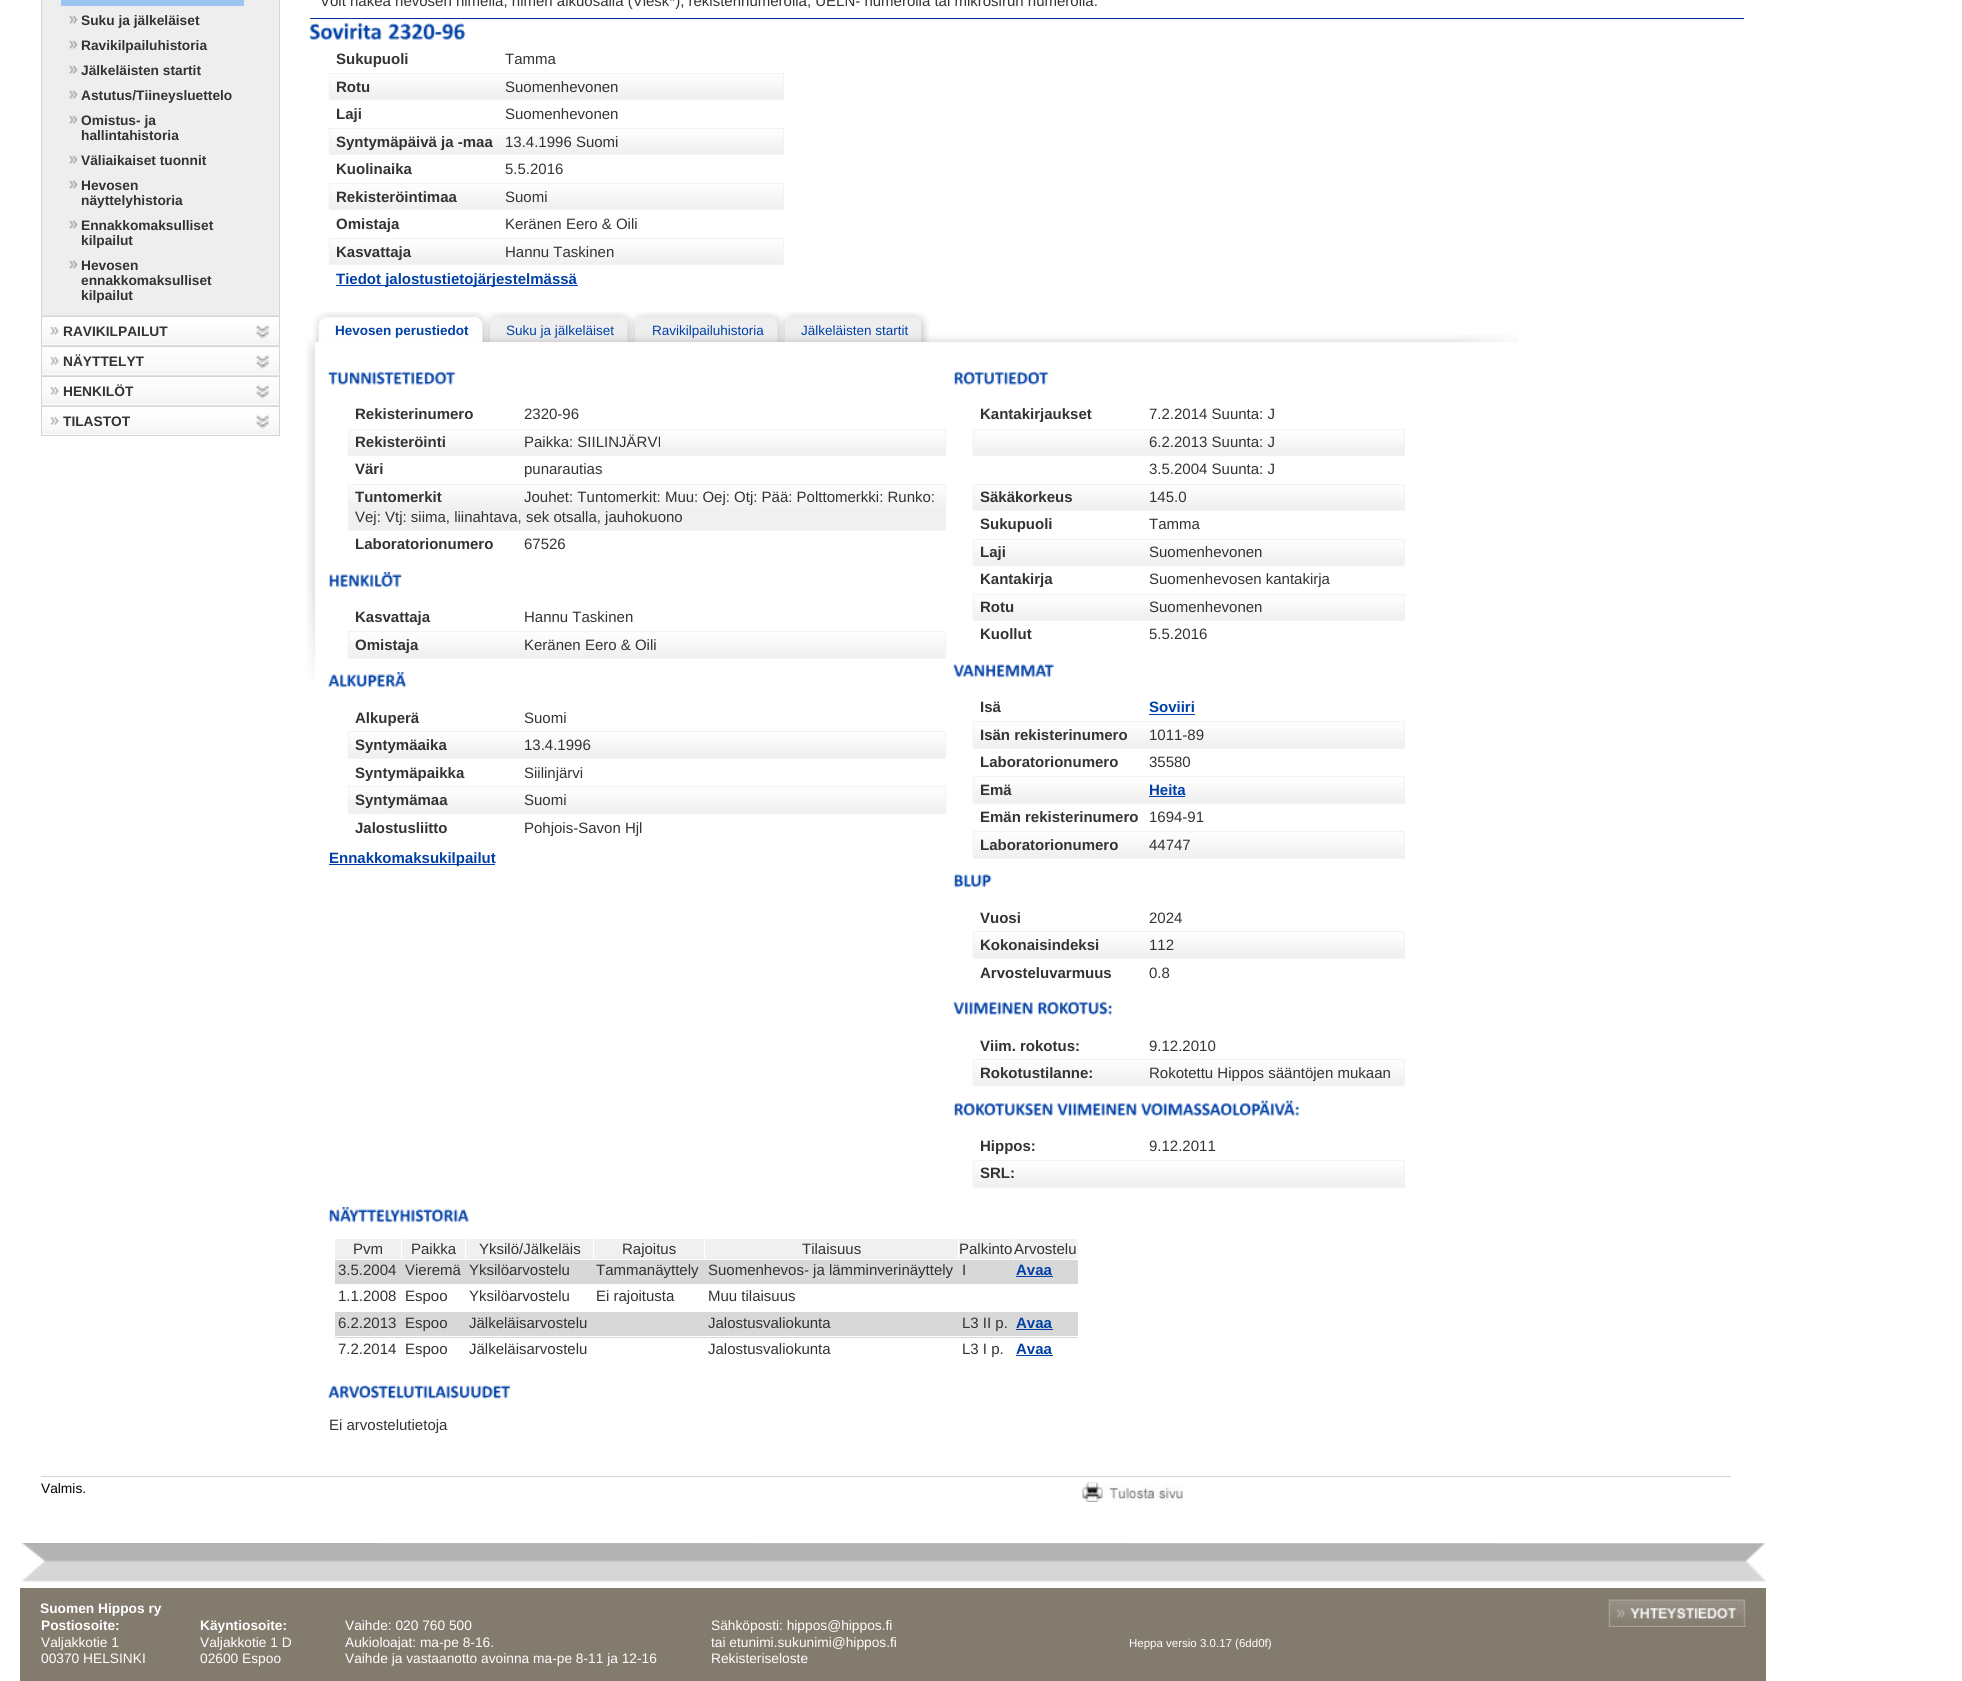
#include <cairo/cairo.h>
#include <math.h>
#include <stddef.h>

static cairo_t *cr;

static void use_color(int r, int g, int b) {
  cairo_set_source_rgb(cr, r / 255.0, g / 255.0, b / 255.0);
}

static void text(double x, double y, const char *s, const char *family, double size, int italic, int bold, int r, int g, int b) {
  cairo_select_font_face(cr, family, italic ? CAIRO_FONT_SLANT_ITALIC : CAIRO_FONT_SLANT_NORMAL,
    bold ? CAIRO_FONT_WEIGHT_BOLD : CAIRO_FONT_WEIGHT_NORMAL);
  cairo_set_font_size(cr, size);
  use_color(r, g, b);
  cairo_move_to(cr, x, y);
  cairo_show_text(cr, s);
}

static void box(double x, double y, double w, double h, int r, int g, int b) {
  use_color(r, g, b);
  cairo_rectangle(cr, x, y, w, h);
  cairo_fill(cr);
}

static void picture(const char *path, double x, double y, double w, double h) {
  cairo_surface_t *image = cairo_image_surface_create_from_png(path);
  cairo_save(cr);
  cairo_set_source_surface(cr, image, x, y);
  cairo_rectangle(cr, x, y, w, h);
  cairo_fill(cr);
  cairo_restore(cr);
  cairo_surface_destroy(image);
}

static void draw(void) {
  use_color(255, 255, 255);
  cairo_paint(cr);
  box(42, 0, 237, 315, 238, 238, 238);
  box(279, 0, 1, 316, 213, 213, 213);
  box(41, 315, 239, 1, 213, 213, 213);
  box(41, 0, 1, 316, 213, 213, 213);
  box(61, 0, 183, 6, 156, 196, 240);
  picture("img_01.png", 69, 15, 9, 9);
  picture("img_01.png", 69, 40, 9, 9);
  picture("img_01.png", 69, 65, 9, 9);
  picture("img_01.png", 69, 90, 9, 9);
  picture("img_01.png", 69, 115, 9, 9);
  picture("img_01.png", 69, 155, 9, 9);
  picture("img_01.png", 69, 180, 9, 9);
  picture("img_01.png", 69, 220, 9, 9);
  picture("img_01.png", 69, 260, 9, 9);
  picture("img_02.png", 41, 315, 239, 30);
  cairo_rectangle(cr, 41.5, 316.5, 238, 29);
  use_color(213, 213, 213);
  cairo_set_line_width(cr, 1);
  cairo_stroke(cr);
  picture("img_03.png", 50, 327, 9, 8);
  picture("img_04.png", 256, 324, 13, 15);
  picture("img_02.png", 41, 345, 239, 30);
  cairo_rectangle(cr, 41.5, 346.5, 238, 29);
  cairo_stroke(cr);
  picture("img_03.png", 50, 357, 9, 8);
  picture("img_04.png", 256, 354, 13, 15);
  picture("img_02.png", 41, 375, 239, 30);
  cairo_rectangle(cr, 41.5, 376.5, 238, 29);
  cairo_stroke(cr);
  picture("img_03.png", 50, 387, 9, 8);
  picture("img_04.png", 256, 384, 13, 15);
  picture("img_02.png", 41, 405, 239, 30);
  cairo_rectangle(cr, 41.5, 406.5, 238, 29);
  cairo_stroke(cr);
  picture("img_03.png", 50, 417, 9, 8);
  picture("img_04.png", 256, 414, 13, 15);
  box(310, 18, 1434, 1, 0, 51, 153);
  picture("img_05.png", 309, 23, 73, 17);
  picture("img_06.png", 388, 23, 78, 17);
  box(330, 98, 453, 1, 240, 240, 240);
  picture("img_07.png", 328, 73, 455, 25);
  cairo_rectangle(cr, 329.5, 73.5, 454, 26);
  use_color(242, 243, 243);
  cairo_stroke(cr);
  box(330, 153, 453, 1, 240, 240, 240);
  picture("img_07.png", 328, 128, 455, 25);
  cairo_rectangle(cr, 329.5, 128.5, 454, 26);
  use_color(242, 243, 243);
  cairo_stroke(cr);
  box(330, 208, 453, 1, 240, 240, 240);
  picture("img_07.png", 328, 183, 455, 25);
  cairo_rectangle(cr, 329.5, 183.5, 454, 26);
  use_color(242, 243, 243);
  cairo_stroke(cr);
  box(330, 263, 453, 1, 240, 240, 240);
  picture("img_07.png", 328, 238, 455, 25);
  cairo_rectangle(cr, 329.5, 238.5, 454, 26);
  use_color(242, 243, 243);
  cairo_stroke(cr);
  box(336, 285, 242, 1, 0, 64, 166);
  picture("img_15.png", 306, 334, 1212, 347);
  picture("img_11.png", 485, 312, 135, 30);
  picture("img_08.png", 475, 312, 15, 30);
  picture("img_09.png", 313, 312, 162, 30);
  picture("img_10.png", 620, 312, 15, 30);
  picture("img_10.png", 770, 312, 15, 30);
  picture("img_12.png", 630, 312, 140, 30);
  picture("img_13.png", 913, 312, 16, 30);
  picture("img_14.png", 780, 312, 134, 30);
  picture("img_16.png", 328, 371, 128, 14);
  box(349, 454, 596, 1, 240, 240, 240);
  picture("img_17.png", 347, 429, 600, 26);
  cairo_rectangle(cr, 348.5, 429.5, 597, 26);
  use_color(242, 243, 243);
  cairo_stroke(cr);
  box(349, 509, 596, 21, 240, 240, 240);
  picture("img_17.png", 347, 484, 600, 26);
  cairo_rectangle(cr, 348.5, 484.5, 597, 46);
  use_color(242, 243, 243);
  cairo_stroke(cr);
  picture("img_18.png", 328, 571, 74, 17);
  box(349, 657, 596, 1, 240, 240, 240);
  picture("img_19.png", 347, 632, 600, 25);
  cairo_rectangle(cr, 348.5, 631.5, 597, 27);
  use_color(242, 243, 243);
  cairo_stroke(cr);
  picture("img_20.png", 328, 671, 79, 17);
  box(349, 757, 596, 1, 240, 240, 240);
  picture("img_19.png", 347, 732, 600, 25);
  cairo_rectangle(cr, 348.5, 731.5, 597, 27);
  use_color(242, 243, 243);
  cairo_stroke(cr);
  box(349, 812, 596, 1, 240, 240, 240);
  picture("img_19.png", 347, 787, 600, 25);
  cairo_rectangle(cr, 348.5, 786.5, 597, 27);
  use_color(242, 243, 243);
  cairo_stroke(cr);
  box(329, 864, 166, 1, 0, 64, 166);
  picture("img_21.png", 953, 371, 96, 14);
  box(974, 454, 430, 1, 240, 240, 240);
  picture("img_22.png", 972, 429, 432, 26);
  cairo_rectangle(cr, 973.5, 429.5, 431, 26);
  use_color(242, 243, 243);
  cairo_stroke(cr);
  box(974, 509, 430, 1, 240, 240, 240);
  picture("img_22.png", 972, 484, 432, 26);
  cairo_rectangle(cr, 973.5, 484.5, 431, 26);
  use_color(242, 243, 243);
  cairo_stroke(cr);
  box(974, 564, 430, 1, 240, 240, 240);
  picture("img_22.png", 972, 539, 432, 26);
  cairo_rectangle(cr, 973.5, 539.5, 431, 26);
  use_color(242, 243, 243);
  cairo_stroke(cr);
  box(974, 619, 430, 1, 240, 240, 240);
  picture("img_22.png", 972, 594, 432, 26);
  cairo_rectangle(cr, 973.5, 594.5, 431, 26);
  use_color(242, 243, 243);
  cairo_stroke(cr);
  picture("img_23.png", 953, 664, 101, 14);
  box(1149, 714, 46, 1, 0, 64, 166);
  box(974, 747, 430, 1, 240, 240, 240);
  picture("img_24.png", 972, 722, 432, 25);
  cairo_rectangle(cr, 973.5, 721.5, 431, 27);
  use_color(242, 243, 243);
  cairo_stroke(cr);
  box(974, 802, 430, 1, 240, 240, 240);
  picture("img_24.png", 972, 777, 432, 25);
  cairo_rectangle(cr, 973.5, 776.5, 431, 27);
  use_color(242, 243, 243);
  cairo_stroke(cr);
  box(1149, 796, 36, 1, 0, 64, 166);
  box(974, 857, 430, 1, 240, 240, 240);
  picture("img_24.png", 972, 832, 432, 25);
  cairo_rectangle(cr, 973.5, 831.5, 431, 27);
  use_color(242, 243, 243);
  cairo_stroke(cr);
  picture("img_25.png", 953, 874, 39, 14);
  box(974, 957, 430, 1, 240, 240, 240);
  picture("img_24.png", 972, 932, 432, 25);
  cairo_rectangle(cr, 973.5, 931.5, 431, 27);
  use_color(242, 243, 243);
  cairo_stroke(cr);
  picture("img_26.png", 953, 1001, 80, 14);
  picture("img_27.png", 1037, 1001, 75, 14);
  box(974, 1084, 430, 1, 240, 240, 240);
  picture("img_22.png", 972, 1059, 432, 26);
  cairo_rectangle(cr, 973.5, 1059.5, 431, 26);
  use_color(242, 243, 243);
  cairo_stroke(cr);
  picture("img_28.png", 953, 1103, 100, 13);
  picture("img_29.png", 1057, 1103, 80, 13);
  picture("img_30.png", 1141, 1100, 158, 16);
  box(974, 1185, 430, 2, 240, 240, 240);
  picture("img_31.png", 972, 1161, 432, 25);
  cairo_rectangle(cr, 973.5, 1160.5, 431, 27);
  use_color(242, 243, 243);
  cairo_stroke(cr);
  picture("img_32.png", 328, 1206, 141, 17);
  box(335, 1239, 130, 20, 240, 240, 240);
  box(401, 1239, 1, 20, 255, 255, 255);
  box(466, 1239, 127, 20, 240, 240, 240);
  box(594, 1239, 110, 20, 240, 240, 240);
  box(705, 1239, 253, 20, 240, 240, 240);
  box(959, 1239, 54, 20, 240, 240, 240);
  box(1014, 1239, 64, 20, 240, 240, 240);
  box(1076, 1239, 1, 20, 255, 255, 255);
  box(335, 1260, 743, 24, 216, 216, 216);
  box(1016, 1276, 37, 1, 0, 64, 166);
  box(335, 1312, 743, 26, 216, 216, 216);
  box(335, 1336, 743, 1, 255, 255, 255);
  box(1016, 1329, 37, 1, 0, 64, 166);
  box(1016, 1355, 37, 1, 0, 64, 166);
  picture("img_33.png", 328, 1385, 183, 14);
  box(41, 1476, 1690, 1, 213, 213, 213);
  picture("img_34.png", 1082, 1482, 101, 20);
  picture("img_35.png", 21, 1543, 1745, 39);
  box(20, 1588, 1746, 93, 131, 123, 110);
  picture("img_36.png", 1608, 1599, 139, 28);
  text(81, 25, "Suku ja jälkeläiset", "Liberation Sans", 13.75, 0, 1, 51, 51, 51);
  text(81, 50, "Ravikilpailuhistoria", "Liberation Sans", 13.75, 0, 1, 51, 51, 51);
  text(81, 75, "Jälkeläisten startit", "Liberation Sans", 13.75, 0, 1, 51, 51, 51);
  text(81, 100, "Astutus/Tiineysluettelo", "Liberation Sans", 13.75, 0, 1, 51, 51, 51);
  text(81, 125, "Omistus- ja", "Liberation Sans", 13.75, 0, 1, 51, 51, 51);
  text(81, 140, "hallintahistoria", "Liberation Sans", 13.75, 0, 1, 51, 51, 51);
  text(81, 165, "Väliaikaiset tuonnit", "Liberation Sans", 13.75, 0, 1, 51, 51, 51);
  text(81, 190, "Hevosen", "Liberation Sans", 13.75, 0, 1, 51, 51, 51);
  text(81, 205, "näyttelyhistoria", "Liberation Sans", 13.75, 0, 1, 51, 51, 51);
  text(81, 230, "Ennakkomaksulliset", "Liberation Sans", 13.75, 0, 1, 51, 51, 51);
  text(81, 245, "kilpailut", "Liberation Sans", 13.75, 0, 1, 51, 51, 51);
  text(81, 270, "Hevosen", "Liberation Sans", 13.75, 0, 1, 51, 51, 51);
  text(81, 285, "ennakkomaksulliset", "Liberation Sans", 13.75, 0, 1, 51, 51, 51);
  text(81, 300, "kilpailut", "Liberation Sans", 13.75, 0, 1, 51, 51, 51);
  text(63, 336, "RAVIKILPAILUT", "Liberation Sans", 13.75, 0, 1, 51, 51, 51);
  text(63, 366, "NÄYTTELYT", "Liberation Sans", 13.75, 0, 1, 51, 51, 51);
  text(63, 396, "HENKILÖT", "Liberation Sans", 13.75, 0, 1, 51, 51, 51);
  text(63, 426, "TILASTOT", "Liberation Sans", 13.75, 0, 1, 51, 51, 51);
  text(320, 6, "Voit hakea hevosen nimellä, nimen alkuosalla (Viesk*), rekisterinumerolla, UELN- numerolla tai mikrosirun numerolla.", "Liberation Sans", 15, 0, 0, 51, 51, 51);
  text(336, 64, "Sukupuoli", "Liberation Sans", 15, 0, 1, 51, 51, 51);
  text(505, 64, "Tamma", "Liberation Sans", 15, 0, 0, 51, 51, 51);
  text(336, 92, "Rotu", "Liberation Sans", 15, 0, 1, 51, 51, 51);
  text(505, 92, "Suomenhevonen", "Liberation Sans", 15, 0, 0, 51, 51, 51);
  text(336, 119, "Laji", "Liberation Sans", 15, 0, 1, 51, 51, 51);
  text(505, 119, "Suomenhevonen", "Liberation Sans", 15, 0, 0, 51, 51, 51);
  text(336, 147, "Syntymäpäivä ja -maa", "Liberation Sans", 15, 0, 1, 51, 51, 51);
  text(505, 147, "13.4.1996 Suomi", "Liberation Sans", 15, 0, 0, 51, 51, 51);
  text(336, 174, "Kuolinaika", "Liberation Sans", 15, 0, 1, 51, 51, 51);
  text(505, 174, "5.5.2016", "Liberation Sans", 15, 0, 0, 51, 51, 51);
  text(336, 202, "Rekisteröintimaa", "Liberation Sans", 15, 0, 1, 51, 51, 51);
  text(505, 202, "Suomi", "Liberation Sans", 15, 0, 0, 51, 51, 51);
  text(336, 229, "Omistaja", "Liberation Sans", 15, 0, 1, 51, 51, 51);
  text(505, 229, "Keränen Eero & Oili", "Liberation Sans", 15, 0, 0, 51, 51, 51);
  text(336, 257, "Kasvattaja", "Liberation Sans", 15, 0, 1, 51, 51, 51);
  text(505, 257, "Hannu Taskinen", "Liberation Sans", 15, 0, 0, 51, 51, 51);
  text(336, 284, "Tiedot jalostustietojärjestelmässä", "Liberation Sans", 15, 0, 1, 0, 64, 166);
  text(335, 335, "Hevosen perustiedot", "Liberation Sans", 13.5, 0, 1, 0, 64, 166);
  text(506, 335, "Suku ja jälkeläiset", "Liberation Sans", 13.5, 0, 0, 0, 64, 166);
  text(652, 335, "Ravikilpailuhistoria", "Liberation Sans", 13.5, 0, 0, 0, 64, 166);
  text(801, 335, "Jälkeläisten startit", "Liberation Sans", 13.5, 0, 0, 0, 64, 166);
  text(355, 419, "Rekisterinumero", "Liberation Sans", 15, 0, 1, 51, 51, 51);
  text(524, 419, "2320-96", "Liberation Sans", 15, 0, 0, 51, 51, 51);
  text(355, 447, "Rekisteröinti", "Liberation Sans", 15, 0, 1, 51, 51, 51);
  text(524, 447, "Paikka: SIILINJÄRVI", "Liberation Sans", 15, 0, 0, 51, 51, 51);
  text(355, 474, "Väri", "Liberation Sans", 15, 0, 1, 51, 51, 51);
  text(524, 474, "punarautias", "Liberation Sans", 15, 0, 0, 51, 51, 51);
  text(355, 502, "Tuntomerkit", "Liberation Sans", 15, 0, 1, 51, 51, 51);
  text(524, 502, "Jouhet: Tuntomerkit: Muu: Oej: Otj: Pää: Polttomerkki: Runko:", "Liberation Sans", 15, 0, 0, 51, 51, 51);
  text(355, 522, "Vej: Vtj: siima, liinahtava, sek otsalla, jauhokuono", "Liberation Sans", 15, 0, 0, 51, 51, 51);
  text(355, 549, "Laboratorionumero", "Liberation Sans", 15, 0, 1, 51, 51, 51);
  text(524, 549, "67526", "Liberation Sans", 15, 0, 0, 51, 51, 51);
  text(355, 622, "Kasvattaja", "Liberation Sans", 15, 0, 1, 51, 51, 51);
  text(524, 622, "Hannu Taskinen", "Liberation Sans", 15, 0, 0, 51, 51, 51);
  text(355, 650, "Omistaja", "Liberation Sans", 15, 0, 1, 51, 51, 51);
  text(524, 650, "Keränen Eero & Oili", "Liberation Sans", 15, 0, 0, 51, 51, 51);
  text(355, 723, "Alkuperä", "Liberation Sans", 15, 0, 1, 51, 51, 51);
  text(524, 723, "Suomi", "Liberation Sans", 15, 0, 0, 51, 51, 51);
  text(355, 750, "Syntymäaika", "Liberation Sans", 15, 0, 1, 51, 51, 51);
  text(524, 750, "13.4.1996", "Liberation Sans", 15, 0, 0, 51, 51, 51);
  text(355, 778, "Syntymäpaikka", "Liberation Sans", 15, 0, 1, 51, 51, 51);
  text(524, 778, "Siilinjärvi", "Liberation Sans", 15, 0, 0, 51, 51, 51);
  text(355, 805, "Syntymämaa", "Liberation Sans", 15, 0, 1, 51, 51, 51);
  text(524, 805, "Suomi", "Liberation Sans", 15, 0, 0, 51, 51, 51);
  text(355, 833, "Jalostusliitto", "Liberation Sans", 15, 0, 1, 51, 51, 51);
  text(524, 833, "Pohjois-Savon Hjl", "Liberation Sans", 15, 0, 0, 51, 51, 51);
  text(329, 863, "Ennakkomaksukilpailut", "Liberation Sans", 15, 0, 1, 0, 64, 166);
  text(980, 419, "Kantakirjaukset", "Liberation Sans", 15, 0, 1, 51, 51, 51);
  text(1149, 419, "7.2.2014 Suunta: J", "Liberation Sans", 15, 0, 0, 51, 51, 51);
  text(1149, 447, "6.2.2013 Suunta: J", "Liberation Sans", 15, 0, 0, 51, 51, 51);
  text(1149, 474, "3.5.2004 Suunta: J", "Liberation Sans", 15, 0, 0, 51, 51, 51);
  text(980, 502, "Säkäkorkeus", "Liberation Sans", 15, 0, 1, 51, 51, 51);
  text(1149, 502, "145.0", "Liberation Sans", 15, 0, 0, 51, 51, 51);
  text(980, 529, "Sukupuoli", "Liberation Sans", 15, 0, 1, 51, 51, 51);
  text(1149, 529, "Tamma", "Liberation Sans", 15, 0, 0, 51, 51, 51);
  text(980, 557, "Laji", "Liberation Sans", 15, 0, 1, 51, 51, 51);
  text(1149, 557, "Suomenhevonen", "Liberation Sans", 15, 0, 0, 51, 51, 51);
  text(980, 584, "Kantakirja", "Liberation Sans", 15, 0, 1, 51, 51, 51);
  text(1149, 584, "Suomenhevosen kantakirja", "Liberation Sans", 15, 0, 0, 51, 51, 51);
  text(980, 612, "Rotu", "Liberation Sans", 15, 0, 1, 51, 51, 51);
  text(1149, 612, "Suomenhevonen", "Liberation Sans", 15, 0, 0, 51, 51, 51);
  text(980, 639, "Kuollut", "Liberation Sans", 15, 0, 1, 51, 51, 51);
  text(1149, 639, "5.5.2016", "Liberation Sans", 15, 0, 0, 51, 51, 51);
  text(980, 712, "Isä", "Liberation Sans", 15, 0, 1, 51, 51, 51);
  text(1149, 712, "Soviiri", "Liberation Sans", 15, 0, 1, 0, 64, 166);
  text(980, 740, "Isän rekisterinumero", "Liberation Sans", 15, 0, 1, 51, 51, 51);
  text(1149, 740, "1011-89", "Liberation Sans", 15, 0, 0, 51, 51, 51);
  text(980, 767, "Laboratorionumero", "Liberation Sans", 15, 0, 1, 51, 51, 51);
  text(1149, 767, "35580", "Liberation Sans", 15, 0, 0, 51, 51, 51);
  text(980, 795, "Emä", "Liberation Sans", 15, 0, 1, 51, 51, 51);
  text(1149, 795, "Heita", "Liberation Sans", 15, 0, 1, 0, 64, 166);
  text(980, 822, "Emän rekisterinumero", "Liberation Sans", 15, 0, 1, 51, 51, 51);
  text(1149, 822, "1694-91", "Liberation Sans", 15, 0, 0, 51, 51, 51);
  text(980, 850, "Laboratorionumero", "Liberation Sans", 15, 0, 1, 51, 51, 51);
  text(1149, 850, "44747", "Liberation Sans", 15, 0, 0, 51, 51, 51);
  text(980, 923, "Vuosi", "Liberation Sans", 15, 0, 1, 51, 51, 51);
  text(1149, 923, "2024", "Liberation Sans", 15, 0, 0, 51, 51, 51);
  text(980, 950, "Kokonaisindeksi", "Liberation Sans", 15, 0, 1, 51, 51, 51);
  text(1149, 950, "112", "Liberation Sans", 15, 0, 0, 51, 51, 51);
  text(980, 978, "Arvosteluvarmuus", "Liberation Sans", 15, 0, 1, 51, 51, 51);
  text(1149, 978, "0.8", "Liberation Sans", 15, 0, 0, 51, 51, 51);
  text(980, 1051, "Viim. rokotus:", "Liberation Sans", 15, 0, 1, 51, 51, 51);
  text(1149, 1051, "9.12.2010", "Liberation Sans", 15, 0, 0, 51, 51, 51);
  text(980, 1078, "Rokotustilanne:", "Liberation Sans", 15, 0, 1, 51, 51, 51);
  text(1149, 1078, "Rokotettu Hippos sääntöjen mukaan", "Liberation Sans", 15, 0, 0, 51, 51, 51);
  text(980, 1151, "Hippos:", "Liberation Sans", 15, 0, 1, 51, 51, 51);
  text(1149, 1151, "9.12.2011", "Liberation Sans", 15, 0, 0, 51, 51, 51);
  text(980, 1178, "SRL:", "Liberation Sans", 15, 0, 1, 51, 51, 51);
  text(353, 1254, "Pvm", "Liberation Sans", 15, 0, 0, 51, 51, 51);
  text(411, 1254, "Paikka", "Liberation Sans", 15, 0, 0, 51, 51, 51);
  text(479, 1254, "Yksilö/Jälkeläis", "Liberation Sans", 15, 0, 0, 51, 51, 51);
  text(622, 1254, "Rajoitus", "Liberation Sans", 15, 0, 0, 51, 51, 51);
  text(802, 1254, "Tilaisuus", "Liberation Sans", 15, 0, 0, 51, 51, 51);
  text(959, 1254, "Palkinto", "Liberation Sans", 15, 0, 0, 51, 51, 51);
  text(1014, 1254, "Arvostelu", "Liberation Sans", 15, 0, 0, 51, 51, 51);
  text(338, 1275, "3.5.2004", "Liberation Sans", 15, 0, 0, 51, 51, 51);
  text(405, 1275, "Vieremä", "Liberation Sans", 15, 0, 0, 51, 51, 51);
  text(469, 1275, "Yksilöarvostelu", "Liberation Sans", 15, 0, 0, 51, 51, 51);
  text(596, 1275, "Tammanäyttely", "Liberation Sans", 15, 0, 0, 51, 51, 51);
  text(708, 1275, "Suomenhevos- ja lämminverinäyttely", "Liberation Sans", 15, 0, 0, 51, 51, 51);
  text(962, 1275, "I", "Liberation Sans", 15, 0, 0, 51, 51, 51);
  text(1016, 1275, "Avaa", "Liberation Sans", 15, 0, 1, 0, 64, 166);
  text(338, 1301, "1.1.2008", "Liberation Sans", 15, 0, 0, 51, 51, 51);
  text(405, 1301, "Espoo", "Liberation Sans", 15, 0, 0, 51, 51, 51);
  text(469, 1301, "Yksilöarvostelu", "Liberation Sans", 15, 0, 0, 51, 51, 51);
  text(596, 1301, "Ei rajoitusta", "Liberation Sans", 15, 0, 0, 51, 51, 51);
  text(708, 1301, "Muu tilaisuus", "Liberation Sans", 15, 0, 0, 51, 51, 51);
  text(338, 1328, "6.2.2013", "Liberation Sans", 15, 0, 0, 51, 51, 51);
  text(405, 1328, "Espoo", "Liberation Sans", 15, 0, 0, 51, 51, 51);
  text(469, 1328, "Jälkeläisarvostelu", "Liberation Sans", 15, 0, 0, 51, 51, 51);
  text(708, 1328, "Jalostusvaliokunta", "Liberation Sans", 15, 0, 0, 51, 51, 51);
  text(962, 1328, "L3 II p.", "Liberation Sans", 15, 0, 0, 51, 51, 51);
  text(1016, 1328, "Avaa", "Liberation Sans", 15, 0, 1, 0, 64, 166);
  text(338, 1354, "7.2.2014", "Liberation Sans", 15, 0, 0, 51, 51, 51);
  text(405, 1354, "Espoo", "Liberation Sans", 15, 0, 0, 51, 51, 51);
  text(469, 1354, "Jälkeläisarvostelu", "Liberation Sans", 15, 0, 0, 51, 51, 51);
  text(708, 1354, "Jalostusvaliokunta", "Liberation Sans", 15, 0, 0, 51, 51, 51);
  text(962, 1354, "L3 I p.", "Liberation Sans", 15, 0, 0, 51, 51, 51);
  text(1016, 1354, "Avaa", "Liberation Sans", 15, 0, 1, 0, 64, 166);
  text(329, 1430, "Ei arvostelutietoja", "Liberation Sans", 15, 0, 0, 51, 51, 51);
  text(41, 1493, "Valmis.", "Liberation Sans", 13.75, 0, 0, 0, 0, 0);
  text(40, 1613, "Suomen Hippos ry", "Liberation Sans", 13.75, 0, 1, 255, 255, 255);
  text(41, 1630, "Postiosoite:", "Liberation Sans", 13.75, 0, 1, 255, 255, 255);
  text(41, 1647, "Valjakkotie 1", "Liberation Sans", 13.75, 0, 0, 255, 255, 255);
  text(41, 1663, "00370 HELSINKI", "Liberation Sans", 13.75, 0, 0, 255, 255, 255);
  text(200, 1630, "Käyntiosoite:", "Liberation Sans", 13.75, 0, 1, 255, 255, 255);
  text(200, 1647, "Valjakkotie 1 D", "Liberation Sans", 13.75, 0, 0, 255, 255, 255);
  text(200, 1663, "02600 Espoo", "Liberation Sans", 13.75, 0, 0, 255, 255, 255);
  text(345, 1630, "Vaihde: 020 760 500", "Liberation Sans", 13.75, 0, 0, 255, 255, 255);
  text(345, 1647, "Aukioloajat: ma-pe 8-16.", "Liberation Sans", 13.75, 0, 0, 255, 255, 255);
  text(345, 1663, "Vaihde ja vastaanotto avoinna ma-pe 8-11 ja 12-16", "Liberation Sans", 13.75, 0, 0, 255, 255, 255);
  text(711, 1630, "Sähköposti: hippos@hippos.fi", "Liberation Sans", 13.75, 0, 0, 255, 255, 255);
  text(711, 1647, "tai etunimi.sukunimi@hippos.fi", "Liberation Sans", 13.75, 0, 0, 255, 255, 255);
  text(711, 1663, "Rekisteriseloste", "Liberation Sans", 13.75, 0, 0, 255, 255, 255);
  text(1129, 1647, "Heppa versio 3.0.17 (6dd0f)", "Liberation Sans", 11.5, 0, 0, 255, 255, 255);
}

int main(void) {
  cairo_surface_t *surface = cairo_image_surface_create(CAIRO_FORMAT_RGB24, 1962, 1681);
  cr = cairo_create(surface);
  cairo_font_options_t *options = cairo_font_options_create();
  cairo_font_options_set_hint_metrics(options, CAIRO_HINT_METRICS_OFF);
  cairo_font_options_set_hint_style(options, CAIRO_HINT_STYLE_NONE);
  cairo_set_font_options(cr, options);
  cairo_set_miter_limit(cr, 4);
  draw();
  cairo_surface_write_to_png(surface, "out.png");
  cairo_font_options_destroy(options);
  cairo_destroy(cr);
  cairo_surface_destroy(surface);
  return 0;
}
